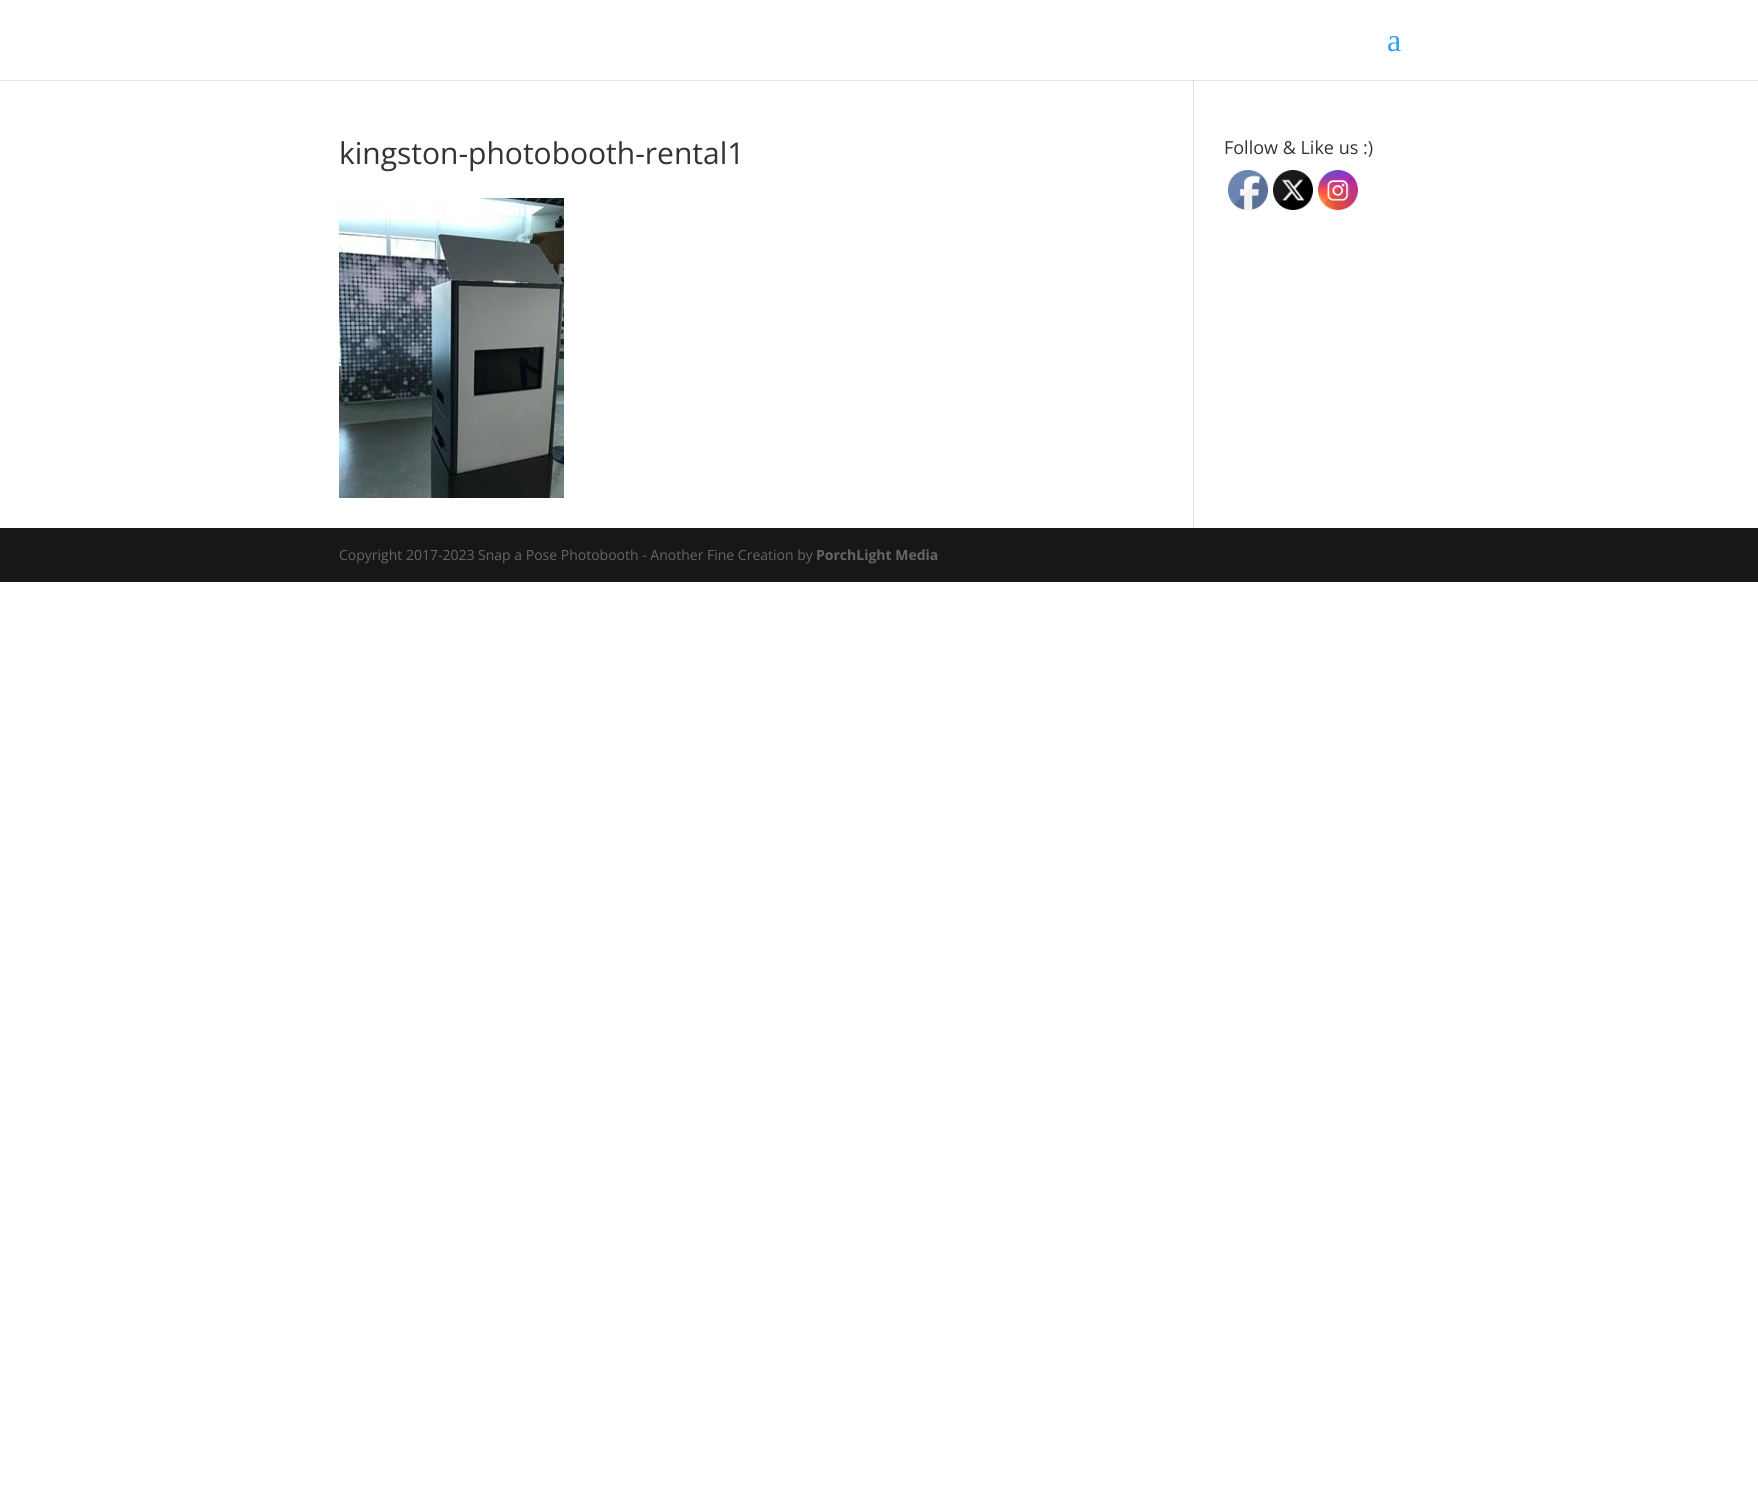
#include <cairo/cairo.h>
#include <math.h>
#include <stddef.h>

static cairo_t *cr;

static void use_color(int r, int g, int b) {
  cairo_set_source_rgb(cr, r / 255.0, g / 255.0, b / 255.0);
}

static void text(double x, double y, const char *s, const char *family, double size, int italic, int bold, int r, int g, int b) {
  cairo_select_font_face(cr, family, italic ? CAIRO_FONT_SLANT_ITALIC : CAIRO_FONT_SLANT_NORMAL,
    bold ? CAIRO_FONT_WEIGHT_BOLD : CAIRO_FONT_WEIGHT_NORMAL);
  cairo_set_font_size(cr, size);
  use_color(r, g, b);
  cairo_move_to(cr, x, y);
  cairo_show_text(cr, s);
}

static void box(double x, double y, double w, double h, int r, int g, int b) {
  use_color(r, g, b);
  cairo_rectangle(cr, x, y, w, h);
  cairo_fill(cr);
}

static void picture(const char *path, double x, double y, double w, double h) {
  cairo_surface_t *image = cairo_image_surface_create_from_png(path);
  cairo_save(cr);
  cairo_set_source_surface(cr, image, x, y);
  cairo_rectangle(cr, x, y, w, h);
  cairo_fill(cr);
  cairo_restore(cr);
  cairo_surface_destroy(image);
}

static void draw(void) {
  use_color(255, 255, 255);
  cairo_paint(cr);
  box(0, 80, 1758, 1, 230, 230, 230);
  box(1193, 80, 1, 448, 226, 226, 226);
  box(1193, 80, 1, 1, 203, 203, 203);
  picture("img_01.png", 339, 198, 225, 300);
  picture("img_02.png", 1228, 170, 40, 40);
  picture("img_03.png", 1273, 170, 40, 40);
  picture("img_04.png", 1318, 170, 40, 40);
  box(0, 528, 1758, 54, 23, 23, 23);
  text(1387, 51, "a", "Liberation Serif", 32, 0, 0, 46, 163, 242);
  text(339, 164, "kingston-photobooth-rental1", "Open Sans", 30, 0, 0, 51, 51, 51);
  text(1224, 154, "Follow & Like us :)", "Open Sans", 18, 0, 0, 51, 51, 51);
  text(339, 560, "Copyright 2017-2023 Snap a Pose Photobooth - Another Fine Creation by", "Open Sans", 14, 0, 0, 102, 102, 102);
  text(816, 560, "PorchLight Media", "Open Sans", 14, 0, 1, 102, 102, 102);
}

int main(void) {
  cairo_surface_t *surface = cairo_image_surface_create(CAIRO_FORMAT_RGB24, 1758, 1499);
  cr = cairo_create(surface);
  cairo_font_options_t *options = cairo_font_options_create();
  cairo_font_options_set_hint_metrics(options, CAIRO_HINT_METRICS_OFF);
  cairo_font_options_set_hint_style(options, CAIRO_HINT_STYLE_NONE);
  cairo_set_font_options(cr, options);
  cairo_set_miter_limit(cr, 4);
  draw();
  cairo_surface_write_to_png(surface, "out.png");
  cairo_font_options_destroy(options);
  cairo_destroy(cr);
  cairo_surface_destroy(surface);
  return 0;
}
